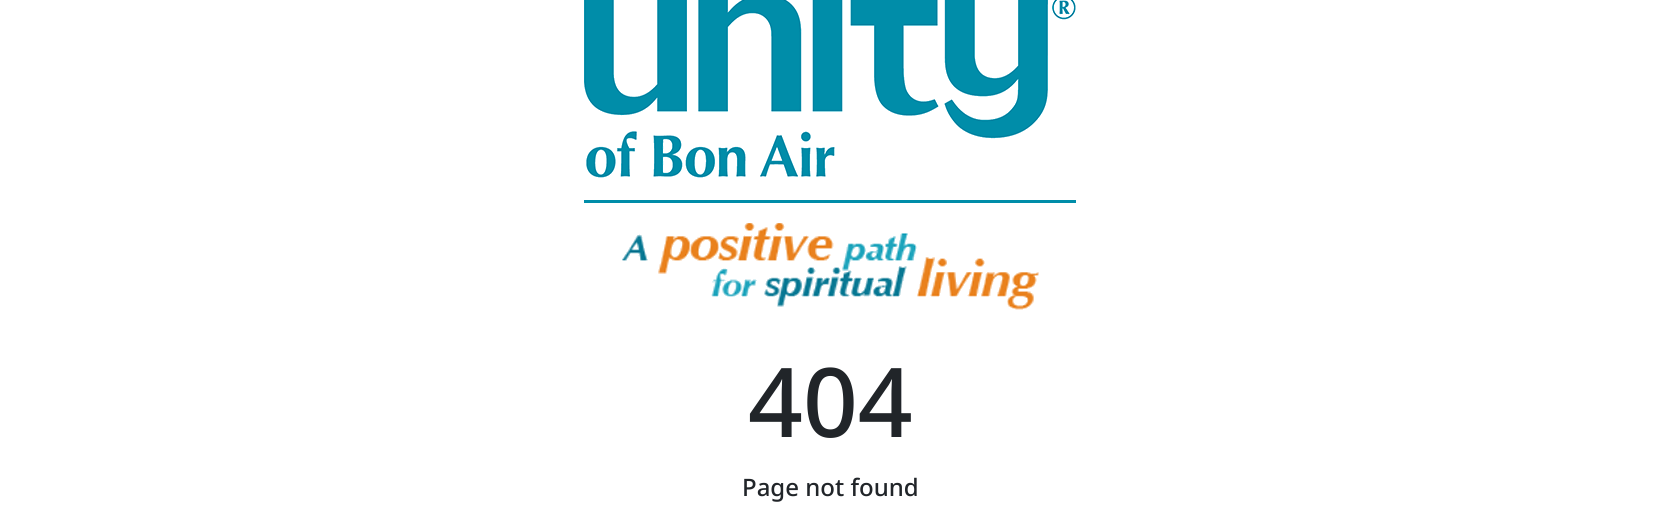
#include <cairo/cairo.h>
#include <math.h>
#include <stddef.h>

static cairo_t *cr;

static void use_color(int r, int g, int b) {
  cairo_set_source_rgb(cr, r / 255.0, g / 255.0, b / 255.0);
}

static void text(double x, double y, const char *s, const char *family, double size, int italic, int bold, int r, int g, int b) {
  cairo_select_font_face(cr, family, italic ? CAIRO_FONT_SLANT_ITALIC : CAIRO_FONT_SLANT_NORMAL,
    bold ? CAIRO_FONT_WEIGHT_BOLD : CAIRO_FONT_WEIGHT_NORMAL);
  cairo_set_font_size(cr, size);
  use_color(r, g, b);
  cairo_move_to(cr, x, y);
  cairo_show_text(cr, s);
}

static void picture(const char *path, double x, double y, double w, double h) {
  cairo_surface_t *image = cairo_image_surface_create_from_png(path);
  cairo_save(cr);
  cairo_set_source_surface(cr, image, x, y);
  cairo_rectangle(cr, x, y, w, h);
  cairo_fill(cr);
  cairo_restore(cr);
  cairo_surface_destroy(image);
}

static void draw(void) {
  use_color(255, 255, 255);
  cairo_paint(cr);
  picture("img_01.png", 584, 0, 492, 310);
  text(748, 437, "404", "Noto Sans Medium", 96, 0, 0, 33, 37, 41);
  text(742, 496, "Page not found", "Noto Sans Medium", 24, 0, 0, 33, 37, 41);
}

int main(void) {
  cairo_surface_t *surface = cairo_image_surface_create(CAIRO_FORMAT_RGB24, 1660, 506);
  cr = cairo_create(surface);
  cairo_font_options_t *options = cairo_font_options_create();
  cairo_font_options_set_hint_metrics(options, CAIRO_HINT_METRICS_OFF);
  cairo_font_options_set_hint_style(options, CAIRO_HINT_STYLE_NONE);
  cairo_set_font_options(cr, options);
  cairo_set_miter_limit(cr, 4);
  draw();
  cairo_surface_write_to_png(surface, "out.png");
  cairo_font_options_destroy(options);
  cairo_destroy(cr);
  cairo_surface_destroy(surface);
  return 0;
}
